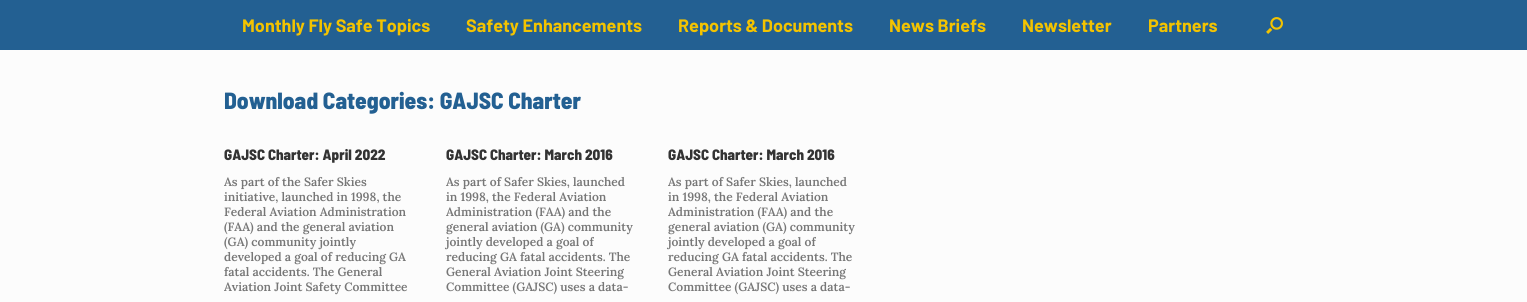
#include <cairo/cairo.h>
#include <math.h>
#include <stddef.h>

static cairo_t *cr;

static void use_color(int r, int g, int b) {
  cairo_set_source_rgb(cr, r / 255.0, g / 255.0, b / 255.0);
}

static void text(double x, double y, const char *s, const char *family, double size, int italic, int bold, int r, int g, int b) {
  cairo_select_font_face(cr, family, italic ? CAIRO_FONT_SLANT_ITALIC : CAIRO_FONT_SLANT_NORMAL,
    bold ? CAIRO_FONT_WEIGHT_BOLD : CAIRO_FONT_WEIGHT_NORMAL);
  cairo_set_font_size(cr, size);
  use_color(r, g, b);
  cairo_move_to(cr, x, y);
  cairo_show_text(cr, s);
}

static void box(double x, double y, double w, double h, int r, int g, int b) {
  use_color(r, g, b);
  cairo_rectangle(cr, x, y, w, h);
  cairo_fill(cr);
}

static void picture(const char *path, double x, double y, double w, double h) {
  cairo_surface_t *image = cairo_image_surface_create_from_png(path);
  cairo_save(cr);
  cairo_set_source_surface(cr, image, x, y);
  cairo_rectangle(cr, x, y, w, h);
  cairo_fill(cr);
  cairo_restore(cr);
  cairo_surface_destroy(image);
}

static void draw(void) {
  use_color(252, 252, 252);
  cairo_paint(cr);
  box(0, 0, 1527, 50, 35, 96, 146);
  picture("img_01.png", 1266, 17, 17, 17);
  text(242, 32, "Monthly Fly Safe Topics", "Barlow", 18, 0, 1, 243, 195, 0);
  text(466, 32, "Safety Enhancements", "Barlow", 18, 0, 1, 243, 195, 0);
  text(678, 32, "Reports & Documents", "Barlow", 18, 0, 1, 243, 195, 0);
  text(889, 32, "News Briefs", "Barlow", 18, 0, 1, 243, 195, 0);
  text(1022, 32, "Newsletter", "Barlow", 18, 0, 1, 243, 195, 0);
  text(1148, 32, "Partners", "Barlow", 18, 0, 1, 243, 195, 0);
  text(224, 109, "Download Categories: GAJSC Charter", "Barlow Semi Condensed ExtraBold", 23.4, 0, 0, 35, 96, 146);
  text(224, 160, "GAJSC Charter: April 2022", "Barlow Semi Condensed ExtraBold", 15, 0, 0, 51, 51, 51);
  text(224, 186, "As part of the Safer Skies", "Lora SemiBold", 12, 0, 0, 119, 119, 119);
  text(224, 201, "initiative, launched in 1998, the", "Lora SemiBold", 12, 0, 0, 119, 119, 119);
  text(224, 216, "Federal Aviation Administration", "Lora SemiBold", 12, 0, 0, 119, 119, 119);
  text(224, 231, "(FAA) and the general aviation", "Lora SemiBold", 12, 0, 0, 119, 119, 119);
  text(224, 246, "(GA) community jointly", "Lora SemiBold", 12, 0, 0, 119, 119, 119);
  text(224, 261, "developed a goal of reducing GA", "Lora SemiBold", 12, 0, 0, 119, 119, 119);
  text(224, 276, "fatal accidents. The General", "Lora SemiBold", 12, 0, 0, 119, 119, 119);
  text(224, 291, "Aviation Joint Safety Committee", "Lora SemiBold", 12, 0, 0, 119, 119, 119);
  text(446, 160, "GAJSC Charter: March 2016", "Barlow Semi Condensed ExtraBold", 15, 0, 0, 51, 51, 51);
  text(446, 186, "As part of Safer Skies, launched", "Lora SemiBold", 12, 0, 0, 119, 119, 119);
  text(446, 201, "in 1998, the Federal Aviation", "Lora SemiBold", 12, 0, 0, 119, 119, 119);
  text(446, 216, "Administration (FAA) and the", "Lora SemiBold", 12, 0, 0, 119, 119, 119);
  text(446, 231, "general aviation (GA) community", "Lora SemiBold", 12, 0, 0, 119, 119, 119);
  text(446, 246, "jointly developed a goal of", "Lora SemiBold", 12, 0, 0, 119, 119, 119);
  text(446, 261, "reducing GA fatal accidents. The", "Lora SemiBold", 12, 0, 0, 119, 119, 119);
  text(446, 276, "General Aviation Joint Steering", "Lora SemiBold", 12, 0, 0, 119, 119, 119);
  text(446, 291, "Committee (GAJSC) uses a data-", "Lora SemiBold", 12, 0, 0, 119, 119, 119);
  text(668, 160, "GAJSC Charter: March 2016", "Barlow Semi Condensed ExtraBold", 15, 0, 0, 51, 51, 51);
  text(668, 186, "As part of Safer Skies, launched", "Lora SemiBold", 12, 0, 0, 119, 119, 119);
  text(668, 201, "in 1998, the Federal Aviation", "Lora SemiBold", 12, 0, 0, 119, 119, 119);
  text(668, 216, "Administration (FAA) and the", "Lora SemiBold", 12, 0, 0, 119, 119, 119);
  text(668, 231, "general aviation (GA) community", "Lora SemiBold", 12, 0, 0, 119, 119, 119);
  text(668, 246, "jointly developed a goal of", "Lora SemiBold", 12, 0, 0, 119, 119, 119);
  text(668, 261, "reducing GA fatal accidents. The", "Lora SemiBold", 12, 0, 0, 119, 119, 119);
  text(668, 276, "General Aviation Joint Steering", "Lora SemiBold", 12, 0, 0, 119, 119, 119);
  text(668, 291, "Committee (GAJSC) uses a data-", "Lora SemiBold", 12, 0, 0, 119, 119, 119);
}

int main(void) {
  cairo_surface_t *surface = cairo_image_surface_create(CAIRO_FORMAT_RGB24, 1527, 302);
  cr = cairo_create(surface);
  cairo_font_options_t *options = cairo_font_options_create();
  cairo_font_options_set_hint_metrics(options, CAIRO_HINT_METRICS_OFF);
  cairo_font_options_set_hint_style(options, CAIRO_HINT_STYLE_NONE);
  cairo_set_font_options(cr, options);
  cairo_set_miter_limit(cr, 4);
  draw();
  cairo_surface_write_to_png(surface, "out.png");
  cairo_font_options_destroy(options);
  cairo_destroy(cr);
  cairo_surface_destroy(surface);
  return 0;
}
